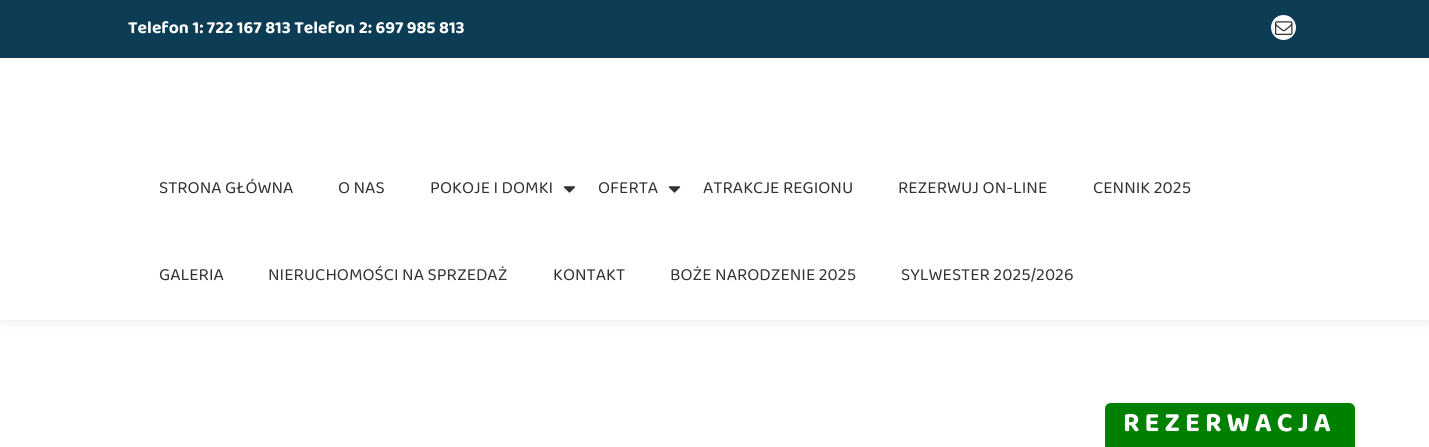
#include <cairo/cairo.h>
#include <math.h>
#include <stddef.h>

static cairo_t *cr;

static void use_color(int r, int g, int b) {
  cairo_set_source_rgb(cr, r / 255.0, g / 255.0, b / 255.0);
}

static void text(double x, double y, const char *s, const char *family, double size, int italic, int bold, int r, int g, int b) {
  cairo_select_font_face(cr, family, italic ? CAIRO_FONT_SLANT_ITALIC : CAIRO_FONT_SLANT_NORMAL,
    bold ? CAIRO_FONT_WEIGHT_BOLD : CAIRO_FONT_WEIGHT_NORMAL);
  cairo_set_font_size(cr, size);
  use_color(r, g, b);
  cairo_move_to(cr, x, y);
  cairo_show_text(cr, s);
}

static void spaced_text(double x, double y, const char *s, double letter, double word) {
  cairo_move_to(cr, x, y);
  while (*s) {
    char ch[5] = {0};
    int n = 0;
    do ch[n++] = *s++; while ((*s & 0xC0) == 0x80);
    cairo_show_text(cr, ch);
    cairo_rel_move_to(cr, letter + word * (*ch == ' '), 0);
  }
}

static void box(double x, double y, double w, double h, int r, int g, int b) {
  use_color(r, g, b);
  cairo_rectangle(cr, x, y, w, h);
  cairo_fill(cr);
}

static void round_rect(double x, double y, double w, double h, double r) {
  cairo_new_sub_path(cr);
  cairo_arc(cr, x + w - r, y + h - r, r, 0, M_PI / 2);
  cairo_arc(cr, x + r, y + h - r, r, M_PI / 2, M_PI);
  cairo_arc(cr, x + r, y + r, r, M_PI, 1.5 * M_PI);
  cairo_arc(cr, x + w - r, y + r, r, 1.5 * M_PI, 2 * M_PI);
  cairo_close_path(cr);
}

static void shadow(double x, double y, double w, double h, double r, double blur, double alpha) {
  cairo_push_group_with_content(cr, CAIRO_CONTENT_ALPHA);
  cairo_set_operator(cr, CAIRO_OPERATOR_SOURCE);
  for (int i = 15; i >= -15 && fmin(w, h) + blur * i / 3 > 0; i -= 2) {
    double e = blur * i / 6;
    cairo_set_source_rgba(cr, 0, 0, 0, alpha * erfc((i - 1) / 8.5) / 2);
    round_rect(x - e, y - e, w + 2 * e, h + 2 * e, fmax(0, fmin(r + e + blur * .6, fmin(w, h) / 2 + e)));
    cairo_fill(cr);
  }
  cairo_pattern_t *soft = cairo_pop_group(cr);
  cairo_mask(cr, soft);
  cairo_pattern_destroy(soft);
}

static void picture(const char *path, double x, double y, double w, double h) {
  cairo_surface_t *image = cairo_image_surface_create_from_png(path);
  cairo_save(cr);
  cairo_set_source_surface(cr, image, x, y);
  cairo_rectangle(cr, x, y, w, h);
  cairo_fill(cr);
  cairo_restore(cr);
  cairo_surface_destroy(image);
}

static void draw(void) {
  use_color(255, 255, 255);
  cairo_paint(cr);
  use_color(50, 50, 50);
  shadow(0, 3, 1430, 320, 0, 5, 0.08);
  box(0, 58, 1429, 262, 255, 255, 255);
  box(0, 0, 1429, 58, 13, 60, 85);
  use_color(255, 255, 255);
  cairo_arc(cr, 1283.5, 27.5, 12.5, 0, 2 * M_PI);
  cairo_fill(cr);
  picture("img_01.png", 1275, 21, 18, 14);
  picture("img_02.png", 563, 186, 13, 7);
  picture("img_02.png", 668, 186, 13, 7);
  use_color(0, 128, 0);
  cairo_new_path(cr);
  cairo_move_to(cr, 1111, 403);
  cairo_line_to(cr, 1349, 403);
  cairo_curve_to(cr, 1352.5, 403, 1355, 405.5, 1355, 409);
  cairo_line_to(cr, 1355, 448);
  cairo_line_to(cr, 1105, 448);
  cairo_line_to(cr, 1105, 409);
  cairo_curve_to(cr, 1105, 405.5, 1107.5, 403, 1111, 403);
  cairo_close_path(cr);
  cairo_fill(cr);
  text(128, 33, "Telefon 1: 722 167 813 Telefon 2: 697 985 813", "Baloo Da 2", 17.5, 0, 1, 255, 255, 255);
  text(159, 193, "STRONA GŁÓWNA", "Baloo Da 2", 17.5, 0, 0, 49, 49, 49);
  text(338, 193, "O NAS", "Baloo Da 2", 17.5, 0, 0, 49, 49, 49);
  text(430, 193, "POKOJE I DOMKI", "Baloo Da 2", 17.5, 0, 0, 49, 49, 49);
  text(598, 193, "OFERTA", "Baloo Da 2", 17.5, 0, 0, 49, 49, 49);
  text(703, 193, "ATRAKCJE REGIONU", "Baloo Da 2", 17.5, 0, 0, 49, 49, 49);
  text(898, 193, "REZERWUJ ON-LINE", "Baloo Da 2", 17.5, 0, 0, 49, 49, 49);
  text(1093, 193, "CENNIK 2025", "Baloo Da 2", 17.5, 0, 0, 49, 49, 49);
  text(159, 280, "GALERIA", "Baloo Da 2", 17.5, 0, 0, 49, 49, 49);
  text(268, 280, "NIERUCHOMOŚCI NA SPRZEDAŻ", "Baloo Da 2", 17.5, 0, 0, 49, 49, 49);
  text(553, 280, "KONTAKT", "Baloo Da 2", 17.5, 0, 0, 49, 49, 49);
  text(670, 280, "BOŻE NARODZENIE 2025", "Baloo Da 2", 17.5, 0, 0, 49, 49, 49);
  text(901, 280, "SYLWESTER 2025/2026", "Baloo Da 2", 17.5, 0, 0, 49, 49, 49);
  cairo_select_font_face(cr, "Baloo Da 2", CAIRO_FONT_SLANT_NORMAL, CAIRO_FONT_WEIGHT_BOLD);
  cairo_set_font_size(cr, 27.5);
  use_color(255, 255, 255);
  spaced_text(1123, 431, "REZERWACJA", 5, 0);
}

int main(void) {
  cairo_surface_t *surface = cairo_image_surface_create(CAIRO_FORMAT_RGB24, 1429, 447);
  cr = cairo_create(surface);
  cairo_font_options_t *options = cairo_font_options_create();
  cairo_font_options_set_hint_metrics(options, CAIRO_HINT_METRICS_OFF);
  cairo_font_options_set_hint_style(options, CAIRO_HINT_STYLE_NONE);
  cairo_set_font_options(cr, options);
  cairo_set_miter_limit(cr, 4);
  draw();
  cairo_surface_write_to_png(surface, "out.png");
  cairo_font_options_destroy(options);
  cairo_destroy(cr);
  cairo_surface_destroy(surface);
  return 0;
}
